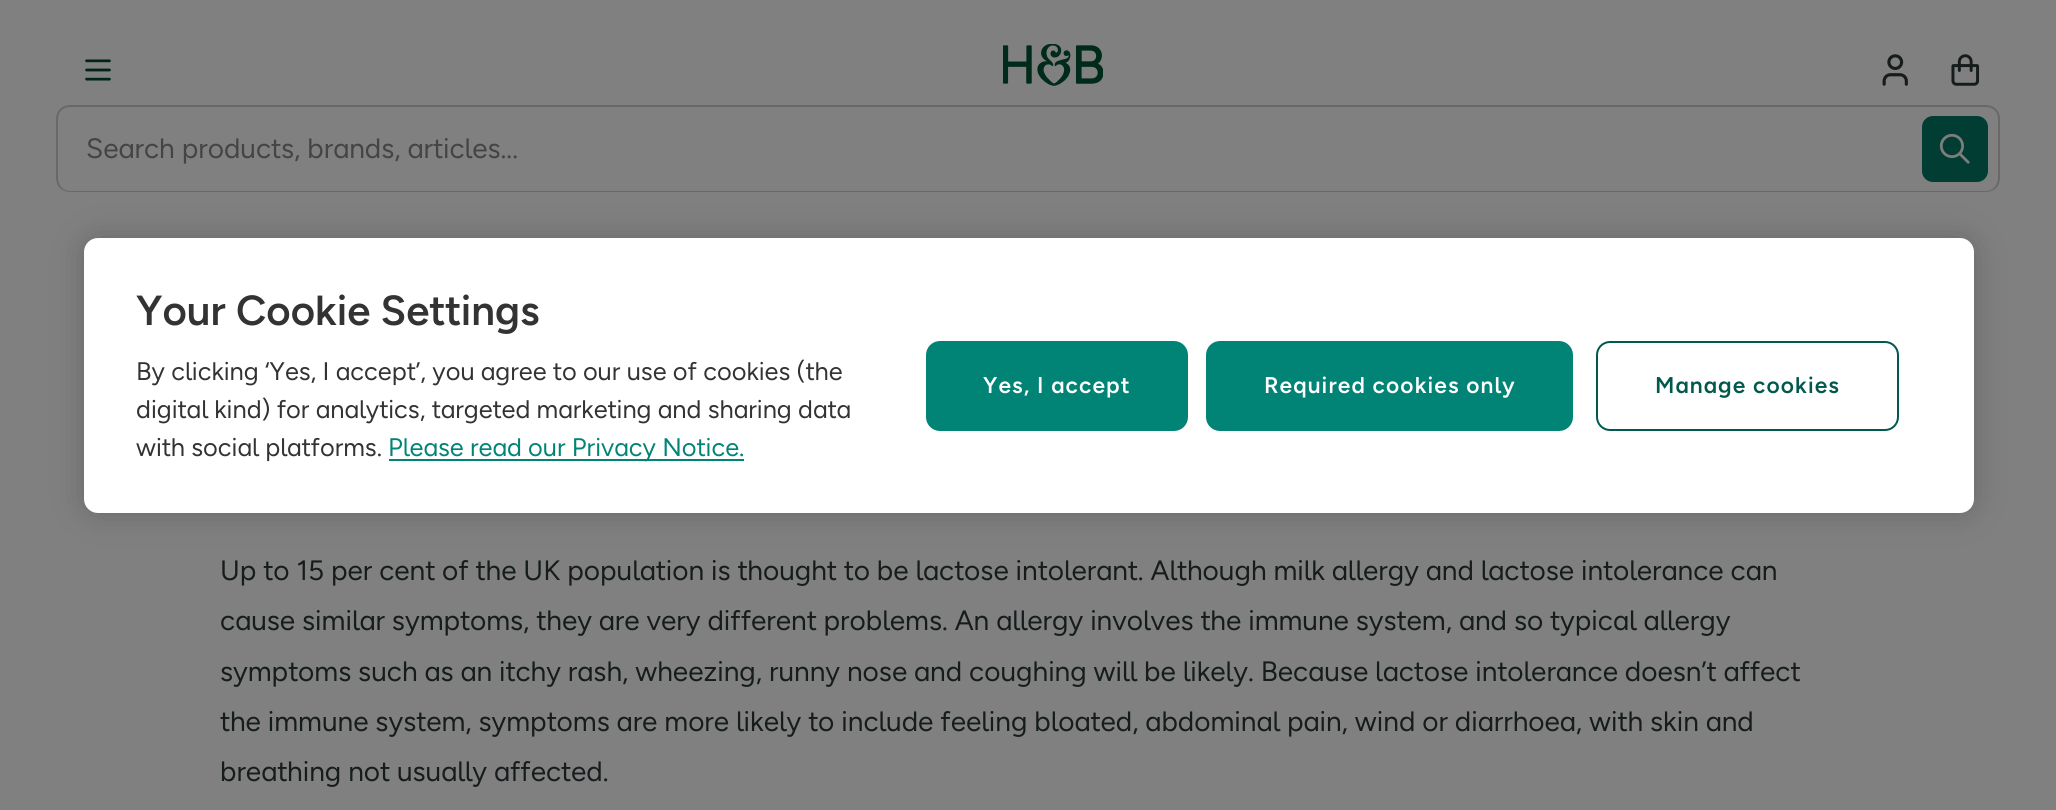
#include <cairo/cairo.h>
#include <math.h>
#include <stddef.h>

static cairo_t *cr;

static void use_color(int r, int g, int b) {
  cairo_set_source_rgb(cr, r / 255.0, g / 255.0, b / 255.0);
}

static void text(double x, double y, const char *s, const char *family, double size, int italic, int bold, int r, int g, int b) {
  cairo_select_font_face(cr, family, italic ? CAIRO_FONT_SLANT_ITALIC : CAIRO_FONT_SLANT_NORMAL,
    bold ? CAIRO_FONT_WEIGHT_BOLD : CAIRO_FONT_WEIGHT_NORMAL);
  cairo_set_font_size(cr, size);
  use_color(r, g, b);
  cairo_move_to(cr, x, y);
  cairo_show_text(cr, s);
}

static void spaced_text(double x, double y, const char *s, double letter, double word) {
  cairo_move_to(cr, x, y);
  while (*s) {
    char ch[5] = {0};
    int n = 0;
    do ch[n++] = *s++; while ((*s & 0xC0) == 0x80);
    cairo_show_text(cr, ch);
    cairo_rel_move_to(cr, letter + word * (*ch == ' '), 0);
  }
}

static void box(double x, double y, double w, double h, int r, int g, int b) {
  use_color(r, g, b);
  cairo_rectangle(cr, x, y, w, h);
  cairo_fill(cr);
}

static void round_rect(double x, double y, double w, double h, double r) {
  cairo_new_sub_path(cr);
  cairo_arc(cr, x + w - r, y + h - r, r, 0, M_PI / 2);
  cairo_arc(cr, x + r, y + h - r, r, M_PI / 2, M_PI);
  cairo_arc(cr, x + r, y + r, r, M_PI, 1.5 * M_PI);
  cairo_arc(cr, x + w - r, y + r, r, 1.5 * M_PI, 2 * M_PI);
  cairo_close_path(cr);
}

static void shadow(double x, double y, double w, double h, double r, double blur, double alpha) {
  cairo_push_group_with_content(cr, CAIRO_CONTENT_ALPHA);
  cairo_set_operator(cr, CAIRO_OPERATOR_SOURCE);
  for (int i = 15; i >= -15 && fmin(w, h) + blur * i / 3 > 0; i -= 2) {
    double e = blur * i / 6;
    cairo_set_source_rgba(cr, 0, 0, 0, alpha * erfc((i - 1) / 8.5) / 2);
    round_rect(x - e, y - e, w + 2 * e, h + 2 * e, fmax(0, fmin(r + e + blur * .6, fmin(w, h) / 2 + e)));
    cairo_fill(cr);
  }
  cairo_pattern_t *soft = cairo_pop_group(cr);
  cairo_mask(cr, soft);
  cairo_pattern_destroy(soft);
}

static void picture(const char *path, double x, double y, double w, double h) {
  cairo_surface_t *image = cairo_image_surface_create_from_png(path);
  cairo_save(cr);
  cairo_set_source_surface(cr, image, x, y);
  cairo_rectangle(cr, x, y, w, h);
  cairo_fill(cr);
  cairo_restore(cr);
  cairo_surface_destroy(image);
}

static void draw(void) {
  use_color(128, 128, 128);
  cairo_paint(cr);
  picture("img_01.png", 85, 59, 26, 22);
  picture("img_02.png", 1003, 44, 100, 42);
  picture("img_03.png", 1882, 54, 26, 32);
  picture("img_04.png", 1951, 54, 29, 32);
  use_color(104, 104, 105);
  cairo_set_fill_rule(cr, CAIRO_FILL_RULE_EVEN_ODD);
  cairo_new_path(cr);
  cairo_move_to(cr, 70, 105);
  cairo_line_to(cr, 1922, 105);
  cairo_line_to(cr, 1922, 192);
  cairo_line_to(cr, 70, 192);
  cairo_curve_to(cr, 62, 192, 56, 186, 56, 178);
  cairo_line_to(cr, 56, 119);
  cairo_curve_to(cr, 56, 111, 62, 105, 70, 105);
  cairo_close_path(cr);
  cairo_move_to(cr, 70, 107);
  cairo_line_to(cr, 1922, 107);
  cairo_line_to(cr, 1922, 191);
  cairo_line_to(cr, 70, 191);
  cairo_curve_to(cr, 63, 191, 58, 185, 58, 178);
  cairo_line_to(cr, 58, 119);
  cairo_curve_to(cr, 58, 112, 63, 107, 70, 107);
  cairo_close_path(cr);
  cairo_fill(cr);
  cairo_new_path(cr);
  cairo_move_to(cr, 1922, 105);
  cairo_line_to(cr, 1986, 105);
  cairo_curve_to(cr, 1994, 105, 2000, 111, 2000, 119);
  cairo_line_to(cr, 2000, 178);
  cairo_curve_to(cr, 2000, 186, 1994, 192, 1986, 192);
  cairo_line_to(cr, 1922, 192);
  cairo_close_path(cr);
  cairo_move_to(cr, 1922, 107);
  cairo_line_to(cr, 1986, 107);
  cairo_curve_to(cr, 1993, 107, 1998, 112, 1998, 119);
  cairo_line_to(cr, 1998, 178);
  cairo_curve_to(cr, 1998, 185, 1993, 191, 1986, 191);
  cairo_line_to(cr, 1922, 191);
  cairo_close_path(cr);
  cairo_fill(cr);
  use_color(1, 61, 51);
  round_rect(1922, 116, 66, 66, 11);
  cairo_fill(cr);
  picture("img_05.png", 1939, 133, 31, 31);
  use_color(0, 0, 0);
  shadow(84, 238, 1890, 275, 14, 16, 0.2);
  use_color(255, 255, 255);
  round_rect(84, 238, 1890, 275, 14);
  cairo_fill(cr);
  box(389, 459, 355, 2, 1, 132, 118);
  round_rect(927, 342, 260, 88, 13);
  cairo_fill_preserve(cr);
  cairo_stroke(cr);
  round_rect(1207, 342, 365, 88, 13);
  cairo_fill_preserve(cr);
  cairo_stroke(cr);
  round_rect(1597, 342, 301, 88, 13);
  use_color(0, 89, 76);
  cairo_stroke(cr);
  text(86, 158, "Search products, brands, articles...", "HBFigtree", 28, 0, 0, 68, 68, 70);
  text(220, 580, "Up to 15 per cent of the UK population is thought to be lactose intolerant. Although milk allergy and lactose intolerance can", "HBFigtree", 28, 0, 0, 22, 28, 28);
  text(220, 630, "cause similar symptoms, they are very different problems. An allergy involves the immune system, and so typical allergy", "HBFigtree", 28, 0, 0, 22, 28, 28);
  text(220, 681, "symptoms such as an itchy rash, wheezing, runny nose and coughing will be likely. Because lactose intolerance doesn’t affect", "HBFigtree", 28, 0, 0, 22, 28, 28);
  text(220, 731, "the immune system, symptoms are more likely to include feeling bloated, abdominal pain, wind or diarrhoea, with skin and", "HBFigtree", 28, 0, 0, 22, 28, 28);
  text(220, 781, "breathing not usually affected.", "HBFigtree", 28, 0, 0, 22, 28, 28);
  text(136, 325, "Your Cookie Settings", "HBFigtree SemiBold", 42, 0, 0, 51, 51, 51);
  text(136, 380, "By clicking ‘Yes, I accept’, you agree to our use of cookies (the", "HBFigtree", 25.4, 0, 0, 51, 51, 51);
  text(136, 418, "digital kind) for analytics, targeted marketing and sharing data", "HBFigtree", 25.4, 0, 0, 51, 51, 51);
  text(136, 456, "with social platforms.", "HBFigtree", 25.4, 0, 0, 51, 51, 51);
  text(388, 456, "Please read our Privacy Notice.", "HBFigtree", 25.4, 0, 0, 1, 132, 118);
  cairo_select_font_face(cr, "HBFigtree SemiBold", CAIRO_FONT_SLANT_NORMAL, CAIRO_FONT_WEIGHT_NORMAL);
  cairo_set_font_size(cr, 22.75);
  use_color(255, 255, 255);
  spaced_text(983, 393, "Yes, I accept", 1.1, 0);
  spaced_text(1264, 393, "Required cookies only", 1.1, 0);
  use_color(0, 89, 76);
  spaced_text(1655, 393, "Manage cookies", 1.1, 0);
}

int main(void) {
  cairo_surface_t *surface = cairo_image_surface_create(CAIRO_FORMAT_RGB24, 2056, 810);
  cr = cairo_create(surface);
  cairo_font_options_t *options = cairo_font_options_create();
  cairo_font_options_set_hint_metrics(options, CAIRO_HINT_METRICS_OFF);
  cairo_font_options_set_hint_style(options, CAIRO_HINT_STYLE_NONE);
  cairo_set_font_options(cr, options);
  cairo_set_miter_limit(cr, 4);
  draw();
  cairo_surface_write_to_png(surface, "out.png");
  cairo_font_options_destroy(options);
  cairo_destroy(cr);
  cairo_surface_destroy(surface);
  return 0;
}
